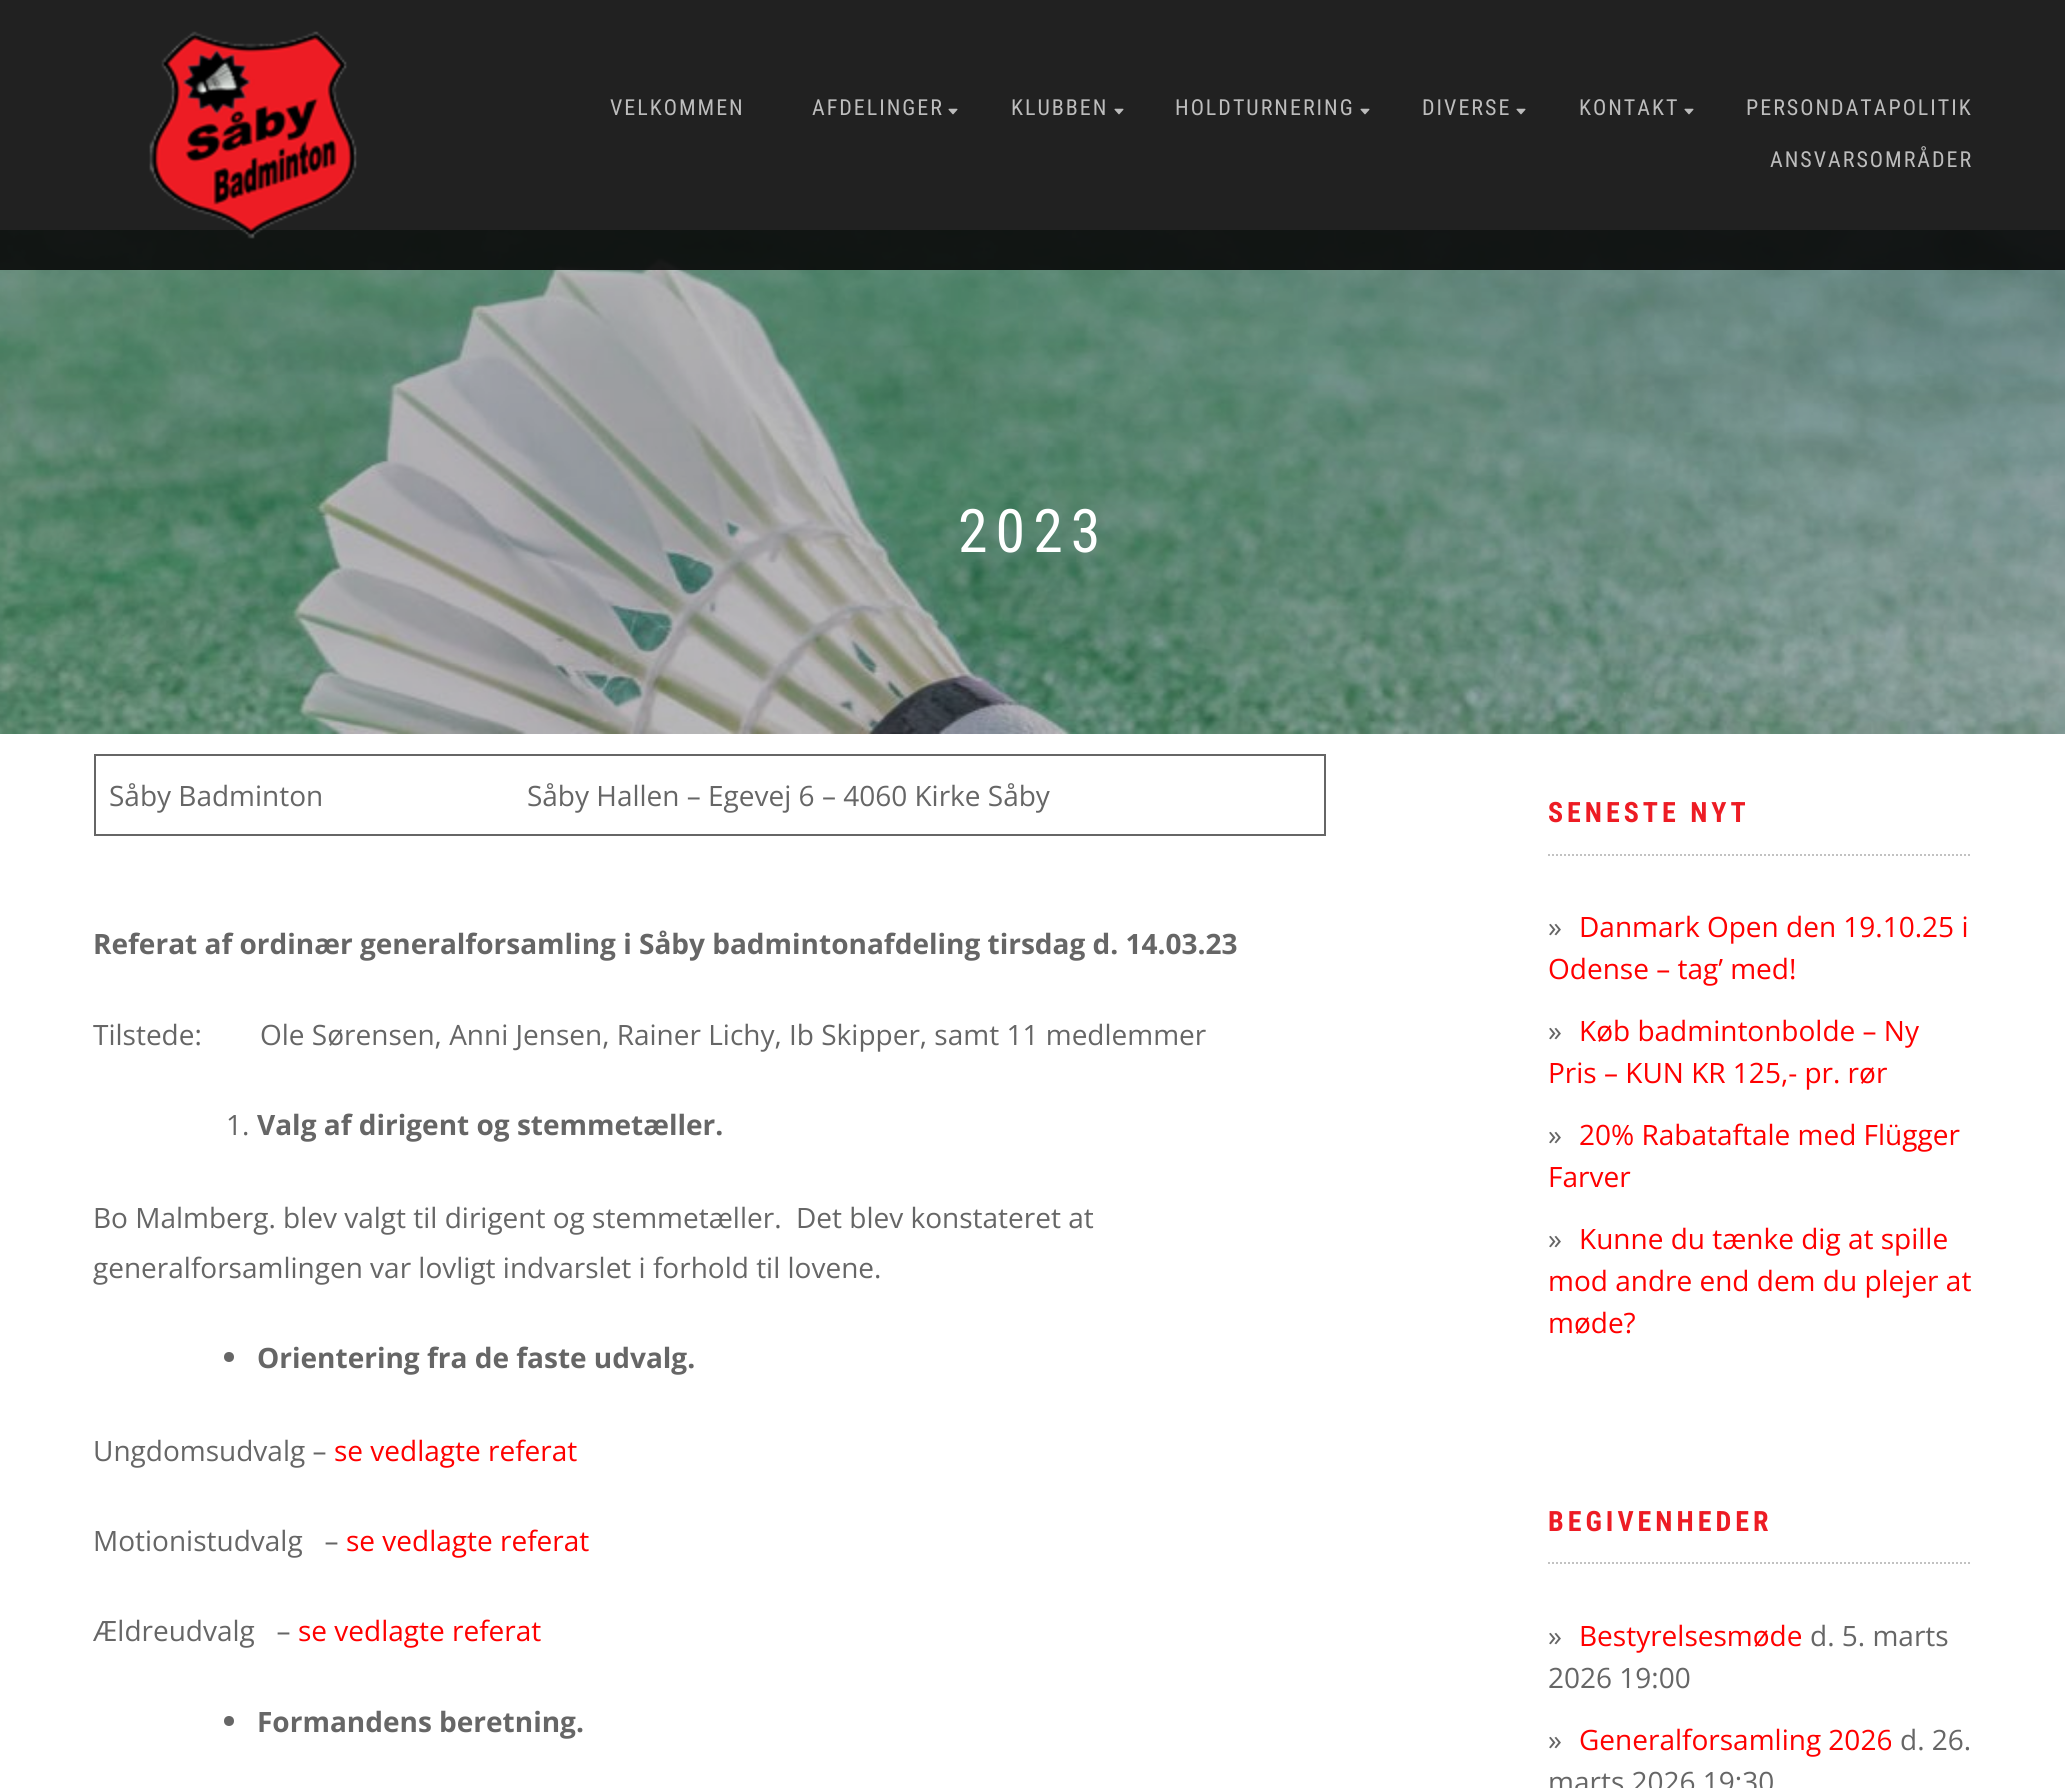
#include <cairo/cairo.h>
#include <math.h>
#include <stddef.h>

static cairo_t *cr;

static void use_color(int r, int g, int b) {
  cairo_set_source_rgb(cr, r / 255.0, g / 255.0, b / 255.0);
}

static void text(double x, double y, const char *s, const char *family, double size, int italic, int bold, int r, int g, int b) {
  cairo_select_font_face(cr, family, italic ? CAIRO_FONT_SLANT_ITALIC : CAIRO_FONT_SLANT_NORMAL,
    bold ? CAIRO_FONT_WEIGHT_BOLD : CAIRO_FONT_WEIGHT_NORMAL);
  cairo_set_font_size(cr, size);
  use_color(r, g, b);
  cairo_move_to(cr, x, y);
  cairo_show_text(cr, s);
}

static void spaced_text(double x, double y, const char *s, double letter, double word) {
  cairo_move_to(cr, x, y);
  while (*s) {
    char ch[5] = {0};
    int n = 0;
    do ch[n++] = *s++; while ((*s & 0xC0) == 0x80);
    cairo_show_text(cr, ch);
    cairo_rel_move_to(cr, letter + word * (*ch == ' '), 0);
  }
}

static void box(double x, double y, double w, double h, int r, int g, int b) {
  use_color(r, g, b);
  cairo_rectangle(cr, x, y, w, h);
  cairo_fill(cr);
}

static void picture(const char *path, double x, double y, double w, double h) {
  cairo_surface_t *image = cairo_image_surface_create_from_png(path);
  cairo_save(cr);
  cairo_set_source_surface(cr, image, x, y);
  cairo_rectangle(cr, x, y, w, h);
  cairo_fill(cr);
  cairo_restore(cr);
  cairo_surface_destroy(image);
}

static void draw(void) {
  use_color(255, 255, 255);
  cairo_paint(cr);
  picture("img_03.png", 0, 230, 2065, 504);
  cairo_set_source_rgba(cr, 0.039, 0.039, 0.039, 0.9);
  cairo_rectangle(cr, 0, 0, 2065, 270);
  cairo_fill(cr);
  picture("img_01.png", 149, 31, 208, 208);
  picture("img_02.png", 948, 108, 10, 7);
  picture("img_02.png", 1114, 108, 10, 7);
  picture("img_02.png", 1360, 108, 10, 7);
  picture("img_02.png", 1516, 108, 10, 7);
  picture("img_02.png", 1684, 108, 10, 7);
  box(94, 754, 1232, 2, 102, 102, 102);
  box(1324, 754, 2, 82, 102, 102, 102);
  box(94, 834, 1232, 2, 102, 102, 102);
  box(94, 754, 2, 82, 102, 102, 102);
  cairo_arc(cr, 229, 1357, 5, 0, 2 * M_PI);
  cairo_fill(cr);
  cairo_arc(cr, 229, 1721, 5, 0, 2 * M_PI);
  cairo_fill(cr);
  cairo_new_path(cr);
  cairo_move_to(cr, 1548, 855);
  cairo_line_to(cr, 1972, 855);
  use_color(194, 194, 194);
  cairo_set_dash(cr, (double[]){2, 2}, 2, 0);
  cairo_stroke(cr);
  cairo_new_path(cr);
  cairo_move_to(cr, 1548, 1563);
  cairo_line_to(cr, 1972, 1563);
  cairo_stroke(cr);
  cairo_select_font_face(cr, "Roboto Condensed", CAIRO_FONT_SLANT_NORMAL, CAIRO_FONT_WEIGHT_NORMAL);
  cairo_set_font_size(cr, 22);
  use_color(189, 189, 189);
  spaced_text(610, 115, "VELKOMMEN", 2, 0);
  spaced_text(812, 115, "AFDELINGER", 2, 0);
  spaced_text(1011, 115, "KLUBBEN", 2, 0);
  spaced_text(1175, 115, "HOLDTURNERING", 2, 0);
  spaced_text(1422, 115, "DIVERSE", 2, 0);
  spaced_text(1579, 115, "KONTAKT", 2, 0);
  spaced_text(1746, 115, "PERSONDATAPOLITIK", 2, 0);
  spaced_text(1770, 167, "ANSVARSOMRÅDER", 2, 0);
  cairo_set_font_size(cr, 60);
  use_color(255, 255, 255);
  spaced_text(958, 552, "2023", 8, 0);
  text(109, 806, "Såby Badminton                            Såby Hallen – Egevej 6 – 4060 Kirke Såby", "Open Sans", 28, 0, 0, 102, 102, 102);
  text(93, 954, "Referat af ordinær generalforsamling i Såby badmintonafdeling tirsdag d. 14.03.23", "Open Sans", 28, 0, 1, 102, 102, 102);
  text(93, 1045, "Tilstede:        Ole Sørensen, Anni Jensen, Rainer Lichy, Ib Skipper, samt 11 medlemmer", "Open Sans", 28, 0, 0, 102, 102, 102);
  text(226, 1135, "1.", "Open Sans", 28, 0, 0, 102, 102, 102);
  text(257, 1135, "Valg af dirigent og stemmetæller.", "Open Sans", 28, 0, 1, 102, 102, 102);
  text(93, 1228, "Bo Malmberg. blev valgt til dirigent og stemmetæller.  Det blev konstateret at", "Open Sans", 28, 0, 0, 102, 102, 102);
  text(93, 1278, "generalforsamlingen var lovligt indvarslet i forhold til lovene.", "Open Sans", 28, 0, 0, 102, 102, 102);
  text(257, 1368, "Orientering fra de faste udvalg.", "Open Sans", 28, 0, 1, 102, 102, 102);
  text(93, 1461, "Ungdomsudvalg –", "Open Sans", 28, 0, 0, 102, 102, 102);
  text(334, 1461, "se vedlagte referat", "Open Sans", 28, 0, 0, 255, 0, 0);
  text(93, 1551, "Motionistudvalg   –", "Open Sans", 28, 0, 0, 102, 102, 102);
  text(346, 1551, "se vedlagte referat", "Open Sans", 28, 0, 0, 255, 0, 0);
  text(93, 1641, "Ældreudvalg   –", "Open Sans", 28, 0, 0, 102, 102, 102);
  text(298, 1641, "se vedlagte referat", "Open Sans", 28, 0, 0, 255, 0, 0);
  text(257, 1732, "Formandens beretning.", "Open Sans", 28, 0, 1, 102, 102, 102);
  cairo_select_font_face(cr, "Roboto Condensed", CAIRO_FONT_SLANT_NORMAL, CAIRO_FONT_WEIGHT_BOLD);
  use_color(237, 28, 36);
  spaced_text(1548, 822, "SENESTE NYT", 4, 0);
  text(1548, 937, "»", "Open Sans", 28, 0, 0, 102, 102, 102);
  text(1579, 937, "Danmark Open den 19.10.25 i", "Open Sans", 28, 0, 0, 255, 0, 0);
  text(1548, 979, "Odense – tag’ med!", "Open Sans", 28, 0, 0, 255, 0, 0);
  text(1548, 1041, "»", "Open Sans", 28, 0, 0, 102, 102, 102);
  text(1579, 1041, "Køb badmintonbolde – Ny", "Open Sans", 28, 0, 0, 255, 0, 0);
  text(1548, 1083, "Pris – KUN KR 125,- pr. rør", "Open Sans", 28, 0, 0, 255, 0, 0);
  text(1548, 1145, "»", "Open Sans", 28, 0, 0, 102, 102, 102);
  text(1579, 1145, "20% Rabataftale med Flügger", "Open Sans", 28, 0, 0, 255, 0, 0);
  text(1548, 1187, "Farver", "Open Sans", 28, 0, 0, 255, 0, 0);
  text(1548, 1249, "»", "Open Sans", 28, 0, 0, 102, 102, 102);
  text(1579, 1249, "Kunne du tænke dig at spille", "Open Sans", 28, 0, 0, 255, 0, 0);
  text(1548, 1291, "mod andre end dem du plejer at", "Open Sans", 28, 0, 0, 255, 0, 0);
  text(1548, 1333, "møde?", "Open Sans", 28, 0, 0, 255, 0, 0);
  cairo_select_font_face(cr, "Roboto Condensed", CAIRO_FONT_SLANT_NORMAL, CAIRO_FONT_WEIGHT_BOLD);
  use_color(237, 28, 36);
  spaced_text(1548, 1531, "BEGIVENHEDER", 4, 0);
  text(1548, 1646, "»", "Open Sans", 28, 0, 0, 102, 102, 102);
  text(1579, 1646, "Bestyrelsesmøde", "Open Sans", 28, 0, 0, 255, 0, 0);
  text(1810, 1646, "d. 5. marts", "Open Sans", 28, 0, 0, 102, 102, 102);
  text(1548, 1688, "2026 19:00", "Open Sans", 28, 0, 0, 102, 102, 102);
  text(1548, 1750, "»", "Open Sans", 28, 0, 0, 102, 102, 102);
  text(1579, 1750, "Generalforsamling 2026", "Open Sans", 28, 0, 0, 255, 0, 0);
  text(1900, 1750, "d. 26.", "Open Sans", 28, 0, 0, 102, 102, 102);
  text(1548, 1792, "marts 2026 19:30", "Open Sans", 28, 0, 0, 102, 102, 102);
}

int main(void) {
  cairo_surface_t *surface = cairo_image_surface_create(CAIRO_FORMAT_RGB24, 2065, 1788);
  cr = cairo_create(surface);
  cairo_font_options_t *options = cairo_font_options_create();
  cairo_font_options_set_hint_metrics(options, CAIRO_HINT_METRICS_OFF);
  cairo_font_options_set_hint_style(options, CAIRO_HINT_STYLE_NONE);
  cairo_set_font_options(cr, options);
  cairo_set_miter_limit(cr, 4);
  draw();
  cairo_surface_write_to_png(surface, "out.png");
  cairo_font_options_destroy(options);
  cairo_destroy(cr);
  cairo_surface_destroy(surface);
  return 0;
}
